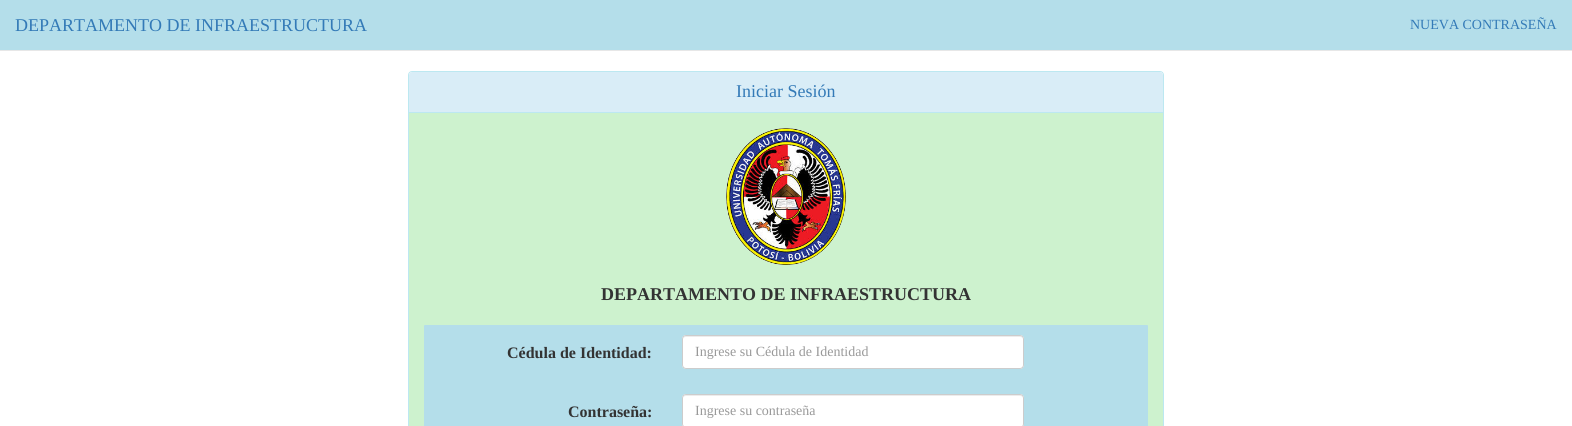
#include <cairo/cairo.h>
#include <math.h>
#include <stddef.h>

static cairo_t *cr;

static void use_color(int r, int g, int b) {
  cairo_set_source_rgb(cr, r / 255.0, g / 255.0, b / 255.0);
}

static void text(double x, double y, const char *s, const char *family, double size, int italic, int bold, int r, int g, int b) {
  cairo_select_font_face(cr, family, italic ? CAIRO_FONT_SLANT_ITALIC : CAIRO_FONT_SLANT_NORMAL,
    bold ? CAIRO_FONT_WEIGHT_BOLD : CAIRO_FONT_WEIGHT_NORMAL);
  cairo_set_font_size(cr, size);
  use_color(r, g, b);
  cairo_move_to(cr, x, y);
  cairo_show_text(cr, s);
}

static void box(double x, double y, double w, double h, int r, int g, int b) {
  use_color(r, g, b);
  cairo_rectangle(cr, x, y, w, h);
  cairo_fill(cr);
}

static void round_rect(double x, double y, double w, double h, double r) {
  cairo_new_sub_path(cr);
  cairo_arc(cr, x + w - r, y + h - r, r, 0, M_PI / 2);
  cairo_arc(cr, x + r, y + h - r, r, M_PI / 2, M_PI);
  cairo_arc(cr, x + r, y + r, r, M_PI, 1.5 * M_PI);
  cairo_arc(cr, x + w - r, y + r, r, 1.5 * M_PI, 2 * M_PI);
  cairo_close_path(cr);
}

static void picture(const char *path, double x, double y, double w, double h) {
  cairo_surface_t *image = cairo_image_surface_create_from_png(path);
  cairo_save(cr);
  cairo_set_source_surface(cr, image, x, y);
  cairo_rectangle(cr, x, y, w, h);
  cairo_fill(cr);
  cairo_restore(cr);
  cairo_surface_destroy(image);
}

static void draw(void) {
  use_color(255, 255, 255);
  cairo_paint(cr);
  box(0, 50, 1572, 1, 231, 231, 231);
  box(0, 0, 1572, 50, 180, 222, 234);
  round_rect(408.5, 71.5, 755, 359, 3.5);
  use_color(188, 232, 241);
  cairo_set_line_width(cr, 1);
  cairo_stroke(cr);
  use_color(217, 237, 247);
  cairo_new_path(cr);
  cairo_move_to(cr, 412, 72);
  cairo_line_to(cr, 1160, 72);
  cairo_curve_to(cr, 1161.5, 72, 1163, 73.5, 1163, 75);
  cairo_line_to(cr, 1163, 113);
  cairo_line_to(cr, 409, 113);
  cairo_line_to(cr, 409, 75);
  cairo_curve_to(cr, 409, 73.5, 410.5, 72, 412, 72);
  cairo_close_path(cr);
  cairo_fill(cr);
  box(409, 112, 754, 1, 188, 232, 241);
  box(409, 113, 754, 313, 205, 242, 206);
  picture("img_01.png", 726, 128, 120, 137);
  use_color(180, 222, 234);
  round_rect(424, 325, 724, 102, 1);
  cairo_fill(cr);
  use_color(255, 255, 255);
  round_rect(682, 335, 342, 34, 4);
  cairo_fill(cr);
  use_color(236, 236, 236);
  cairo_new_path(cr);
  cairo_move_to(cr, 686, 337);
  cairo_line_to(cr, 1020, 337);
  cairo_curve_to(cr, 1022, 337, 1023, 338, 1023, 340);
  cairo_curve_to(cr, 1023, 338, 1022, 336, 1020, 336);
  cairo_line_to(cr, 686, 336);
  cairo_curve_to(cr, 684, 336, 683, 338, 683, 340);
  cairo_curve_to(cr, 683, 338, 684, 337, 686, 337);
  cairo_close_path(cr);
  cairo_fill(cr);
  round_rect(682.5, 335.5, 341, 33, 3.5);
  use_color(204, 204, 204);
  cairo_stroke(cr);
  use_color(255, 255, 255);
  round_rect(682, 394, 342, 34, 4);
  cairo_fill(cr);
  use_color(236, 236, 236);
  cairo_new_path(cr);
  cairo_move_to(cr, 686, 396);
  cairo_line_to(cr, 1020, 396);
  cairo_curve_to(cr, 1022, 396, 1023, 397, 1023, 399);
  cairo_curve_to(cr, 1023, 397, 1022, 395, 1020, 395);
  cairo_line_to(cr, 686, 395);
  cairo_curve_to(cr, 684, 395, 683, 397, 683, 399);
  cairo_curve_to(cr, 683, 397, 684, 396, 686, 396);
  cairo_close_path(cr);
  cairo_fill(cr);
  round_rect(682.5, 394.5, 341, 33, 3.5);
  use_color(204, 204, 204);
  cairo_stroke(cr);
  text(15, 31, "DEPARTAMENTO DE INFRAESTRUCTURA", "Liberation Serif", 18, 0, 0, 51, 122, 183);
  text(1410, 29, "NUEVA CONTRASEÑA", "Liberation Serif", 14, 0, 0, 51, 122, 183);
  text(736, 97, "Iniciar Sesión", "Liberation Serif", 18, 0, 0, 51, 122, 183);
  text(601, 300, "DEPARTAMENTO DE INFRAESTRUCTURA", "Liberation Serif", 18, 0, 1, 51, 51, 51);
  text(507, 358, "Cédula de Identidad:", "Liberation Serif", 16, 0, 1, 51, 51, 51);
  text(695, 356, "Ingrese su Cédula de Identidad", "Liberation Serif", 14, 0, 0, 153, 153, 153);
  text(568, 417, "Contraseña:", "Liberation Serif", 16, 0, 1, 51, 51, 51);
  text(695, 415, "Ingrese su contraseña", "Liberation Serif", 14, 0, 0, 153, 153, 153);
}

int main(void) {
  cairo_surface_t *surface = cairo_image_surface_create(CAIRO_FORMAT_RGB24, 1572, 426);
  cr = cairo_create(surface);
  cairo_font_options_t *options = cairo_font_options_create();
  cairo_font_options_set_hint_metrics(options, CAIRO_HINT_METRICS_OFF);
  cairo_font_options_set_hint_style(options, CAIRO_HINT_STYLE_NONE);
  cairo_set_font_options(cr, options);
  cairo_set_miter_limit(cr, 4);
  draw();
  cairo_surface_write_to_png(surface, "out.png");
  cairo_font_options_destroy(options);
  cairo_destroy(cr);
  cairo_surface_destroy(surface);
  return 0;
}
